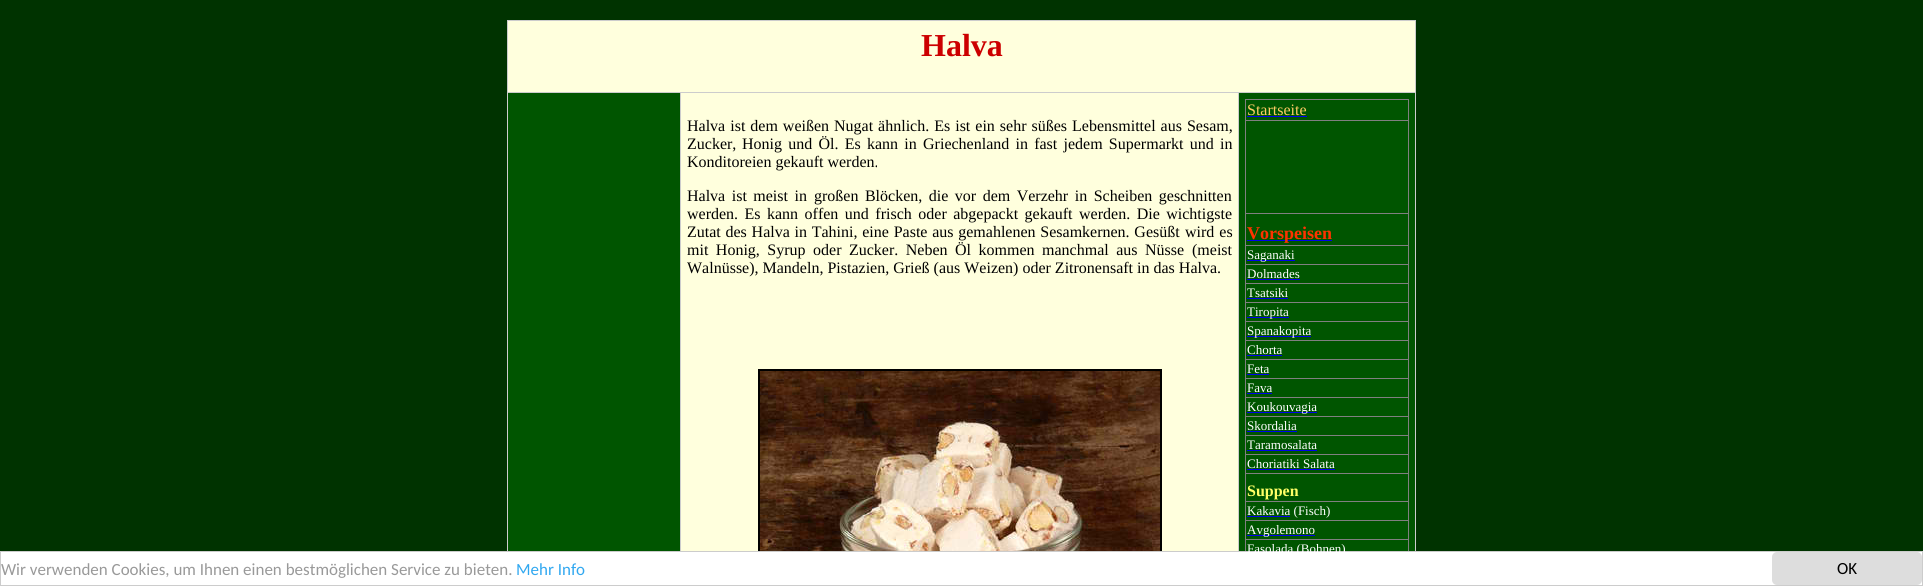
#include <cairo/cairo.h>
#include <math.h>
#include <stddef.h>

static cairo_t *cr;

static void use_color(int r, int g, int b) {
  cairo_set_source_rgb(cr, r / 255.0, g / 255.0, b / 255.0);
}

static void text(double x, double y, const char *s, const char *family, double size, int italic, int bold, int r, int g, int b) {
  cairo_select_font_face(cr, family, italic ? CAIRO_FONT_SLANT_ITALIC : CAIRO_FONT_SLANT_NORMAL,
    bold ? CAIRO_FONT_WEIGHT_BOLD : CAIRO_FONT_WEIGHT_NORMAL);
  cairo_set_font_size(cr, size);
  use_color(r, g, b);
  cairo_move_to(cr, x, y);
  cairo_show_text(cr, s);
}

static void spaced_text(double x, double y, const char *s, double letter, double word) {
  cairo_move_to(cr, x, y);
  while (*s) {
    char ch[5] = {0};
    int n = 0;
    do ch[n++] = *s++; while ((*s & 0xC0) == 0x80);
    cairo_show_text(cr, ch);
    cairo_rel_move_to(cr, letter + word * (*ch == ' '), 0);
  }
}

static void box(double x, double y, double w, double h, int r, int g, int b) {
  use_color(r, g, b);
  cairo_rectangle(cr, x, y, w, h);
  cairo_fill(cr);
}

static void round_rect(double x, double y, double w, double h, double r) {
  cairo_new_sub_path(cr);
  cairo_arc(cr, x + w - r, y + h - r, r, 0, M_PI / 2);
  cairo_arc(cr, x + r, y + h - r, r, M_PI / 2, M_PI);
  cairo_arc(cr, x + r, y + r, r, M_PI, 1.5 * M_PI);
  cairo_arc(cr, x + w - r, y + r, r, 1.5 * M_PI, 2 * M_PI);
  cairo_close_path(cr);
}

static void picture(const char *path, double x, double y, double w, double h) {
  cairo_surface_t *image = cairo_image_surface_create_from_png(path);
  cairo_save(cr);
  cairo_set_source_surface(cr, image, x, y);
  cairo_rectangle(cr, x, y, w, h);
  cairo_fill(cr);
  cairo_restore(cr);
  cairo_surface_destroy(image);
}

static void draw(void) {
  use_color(0, 51, 0);
  cairo_paint(cr);
  box(507, 20, 909, 1, 204, 204, 204);
  box(1415, 20, 1, 531, 204, 204, 204);
  box(507, 20, 1, 531, 204, 204, 204);
  box(508, 21, 907, 71, 255, 255, 221);
  box(508, 93, 172, 458, 0, 85, 0);
  box(1238, 92, 178, 1, 204, 204, 204);
  box(1238, 92, 1, 459, 204, 204, 204);
  box(680, 92, 559, 1, 204, 204, 204);
  box(680, 92, 1, 459, 204, 204, 204);
  box(507, 92, 174, 1, 204, 204, 204);
  box(681, 93, 557, 458, 255, 255, 221);
  cairo_rectangle(cr, 759, 370, 402, 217);
  use_color(0, 0, 0);
  cairo_stroke(cr);
  picture("img_01.png", 760, 371, 400, 180);
  box(1239, 93, 176, 458, 0, 85, 0);
  box(1245, 99, 164, 1, 128, 128, 128);
  box(1408, 99, 1, 452, 128, 128, 128);
  box(1245, 99, 1, 452, 128, 128, 128);
  box(1247, 116, 60, 1, 0, 0, 238);
  box(1245, 120, 164, 1, 128, 128, 128);
  box(1245, 213, 164, 1, 128, 128, 128);
  box(1247, 240, 85, 1, 0, 0, 238);
  box(1245, 245, 164, 1, 128, 128, 128);
  box(1247, 260, 48, 1, 0, 0, 238);
  box(1245, 264, 164, 1, 128, 128, 128);
  box(1247, 279, 53, 1, 0, 0, 238);
  box(1245, 283, 164, 1, 128, 128, 128);
  box(1247, 298, 41, 1, 0, 0, 238);
  box(1245, 302, 164, 1, 128, 128, 128);
  box(1247, 317, 42, 1, 0, 0, 238);
  box(1245, 321, 164, 1, 128, 128, 128);
  box(1247, 336, 64, 1, 0, 0, 238);
  box(1245, 340, 164, 1, 128, 128, 128);
  box(1247, 355, 35, 1, 0, 0, 238);
  box(1245, 359, 164, 1, 128, 128, 128);
  box(1247, 374, 22, 1, 0, 0, 238);
  box(1245, 378, 164, 1, 128, 128, 128);
  box(1247, 393, 25, 1, 0, 0, 238);
  box(1245, 397, 164, 1, 128, 128, 128);
  box(1247, 412, 70, 1, 0, 0, 238);
  box(1245, 416, 164, 1, 128, 128, 128);
  box(1247, 431, 50, 1, 0, 0, 238);
  box(1245, 435, 164, 1, 128, 128, 128);
  box(1247, 450, 70, 1, 0, 0, 238);
  box(1245, 454, 164, 1, 128, 128, 128);
  box(1247, 469, 88, 1, 0, 0, 238);
  box(1245, 473, 164, 1, 128, 128, 128);
  box(1245, 501, 164, 1, 128, 128, 128);
  box(1247, 516, 43, 1, 0, 0, 238);
  box(1245, 520, 164, 1, 128, 128, 128);
  box(1247, 535, 68, 1, 0, 0, 238);
  box(1245, 539, 164, 1, 128, 128, 128);
  use_color(255, 255, 255);
  cairo_rectangle(cr, 0.5, 551.5, 1922, 34);
  cairo_fill_preserve(cr);
  use_color(204, 204, 204);
  cairo_set_line_width(cr, 1);
  cairo_stroke(cr);
  use_color(221, 221, 221);
  round_rect(1772, 552, 150, 33, 5);
  cairo_fill(cr);
  text(921, 56, "Halva", "Liberation Serif", 32, 0, 1, 204, 0, 0);
  cairo_select_font_face(cr, "Liberation Serif", CAIRO_FONT_SLANT_NORMAL, CAIRO_FONT_WEIGHT_NORMAL);
  cairo_set_font_size(cr, 16);
  use_color(0, 0, 0);
  spaced_text(687, 131, "Halva ist dem weißen", 0, 1);
  spaced_text(834, 131, "Nugat ähnlich. Es ist ein sehr süßes Lebensmittel aus Sesam,", 0, 1);
  text(687, 149, "Zucker,", "Liberation Serif", 16, 0, 0, 0, 0, 0);
  spaced_text(742, 149, "Honig und Öl. Es kann in Griechenland in fast jedem Supermarkt und in", 0, 2.25);
  text(687, 167, "Konditoreien gekauft werden.", "Liberation Serif", 16, 0, 0, 0, 0, 0);
  spaced_text(687, 201, "Halva ist meist in", 0, 2.5);
  spaced_text(814, 201, "großen Blöcken, die vor dem Verzehr in Scheiben geschnitten", 0, 2.5);
  spaced_text(687, 219, "werden. Es", 0, 2.5);
  spaced_text(767, 219, "kann offen und frisch oder abgepackt gekauft werden. Die wichtigste", 0, 2.5);
  spaced_text(687, 237, "Zutat des Halva in Tahini, eine Paste aus gemahlenen Sesamkernen. Gesüßt", 0, 0.75);
  spaced_text(1185, 237, "wird es", 0, 1);
  spaced_text(687, 255, "mit Honig, Syrup oder Zucker. Neben Öl kommen manchmal aus Nüsse", 0, 3.5);
  text(1192, 255, "(meist", "Liberation Serif", 16, 0, 0, 0, 0, 0);
  text(687, 273, "Walnüsse), Mandeln, Pistazien, Grieß (aus Weizen) oder Zitronensaft in das Halva.", "Liberation Serif", 16, 0, 0, 0, 0, 0);
  text(1247, 115, "Startseite", "Liberation Serif", 16, 0, 0, 255, 204, 102);
  text(1247, 239, "Vorspeisen", "Liberation Serif", 18, 0, 1, 255, 51, 0);
  text(1247, 259, "Saganaki", "Liberation Serif", 13, 0, 0, 255, 255, 255);
  text(1247, 278, "Dolmades", "Liberation Serif", 13, 0, 0, 255, 255, 255);
  text(1247, 297, "Tsatsiki", "Liberation Serif", 13, 0, 0, 255, 255, 255);
  text(1247, 316, "Tiropita", "Liberation Serif", 13, 0, 0, 255, 255, 255);
  text(1247, 335, "Spanakopita", "Liberation Serif", 13, 0, 0, 255, 255, 255);
  text(1247, 354, "Chorta", "Liberation Serif", 13, 0, 0, 255, 255, 255);
  text(1247, 373, "Feta", "Liberation Serif", 13, 0, 0, 255, 255, 255);
  text(1247, 392, "Fava", "Liberation Serif", 13, 0, 0, 255, 255, 255);
  text(1247, 411, "Koukouvagia", "Liberation Serif", 13, 0, 0, 255, 255, 255);
  text(1247, 430, "Skordalia", "Liberation Serif", 13, 0, 0, 255, 255, 255);
  text(1247, 449, "Taramosalata", "Liberation Serif", 13, 0, 0, 255, 255, 255);
  text(1247, 468, "Choriatiki Salata", "Liberation Serif", 13, 0, 0, 255, 255, 255);
  text(1247, 496, "Suppen", "Liberation Serif", 16, 0, 1, 255, 255, 102);
  text(1247, 515, "Kakavia (Fisch)", "Liberation Serif", 13, 0, 0, 255, 255, 255);
  text(1247, 534, "Avgolemono", "Liberation Serif", 13, 0, 0, 255, 255, 255);
  text(1247, 553, "Fasolada (Bohnen)", "Liberation Serif", 13, 0, 0, 255, 255, 255);
  text(1, 575, "Wir verwenden Cookies, um Ihnen einen bestmöglichen Service zu bieten.", "Carlito", 17, 0, 0, 153, 153, 153);
  text(516, 575, "Mehr Info", "Carlito", 17, 0, 0, 49, 168, 240);
  text(1837, 574, "OK", "Carlito", 17, 0, 0, 0, 0, 0);
}

int main(void) {
  cairo_surface_t *surface = cairo_image_surface_create(CAIRO_FORMAT_RGB24, 1923, 586);
  cr = cairo_create(surface);
  cairo_font_options_t *options = cairo_font_options_create();
  cairo_font_options_set_hint_metrics(options, CAIRO_HINT_METRICS_OFF);
  cairo_font_options_set_hint_style(options, CAIRO_HINT_STYLE_NONE);
  cairo_set_font_options(cr, options);
  cairo_set_miter_limit(cr, 4);
  draw();
  cairo_surface_write_to_png(surface, "out.png");
  cairo_font_options_destroy(options);
  cairo_destroy(cr);
  cairo_surface_destroy(surface);
  return 0;
}
